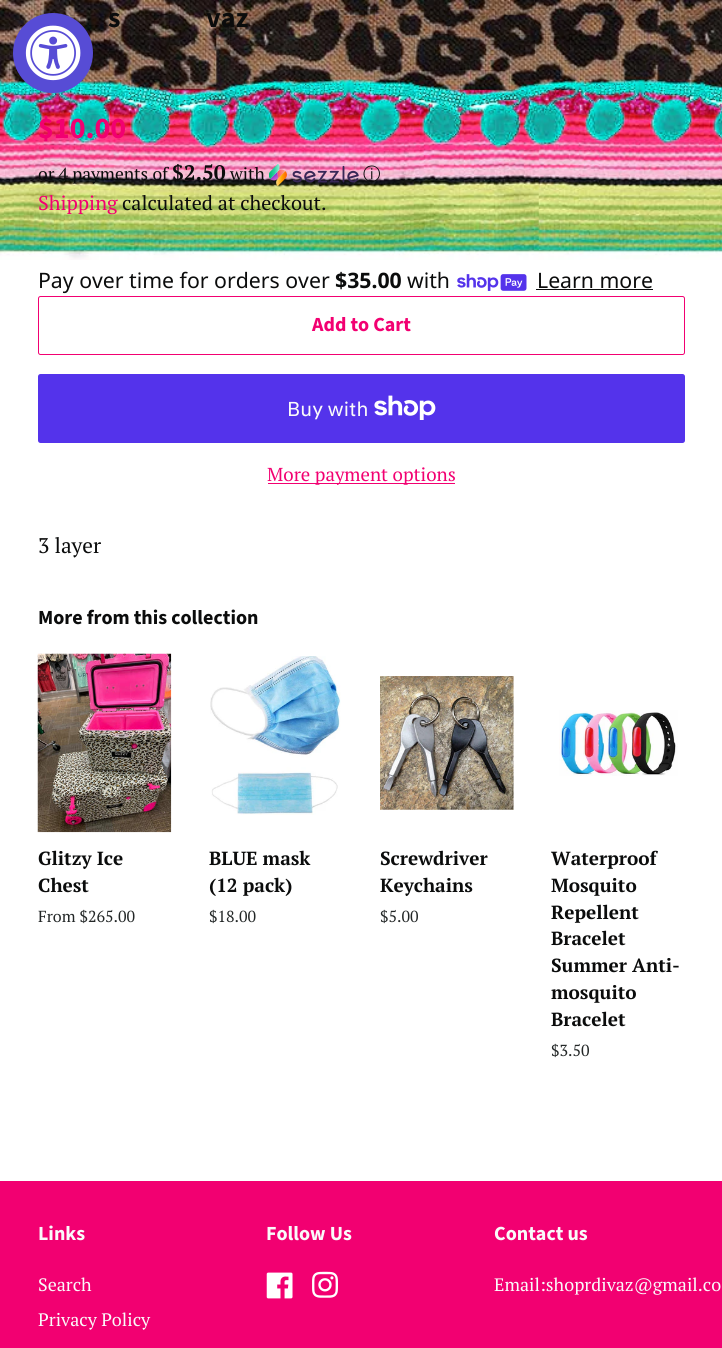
#include <cairo/cairo.h>
#include <math.h>
#include <stddef.h>

static cairo_t *cr;

static void use_color(int r, int g, int b) {
  cairo_set_source_rgb(cr, r / 255.0, g / 255.0, b / 255.0);
}

static void text(double x, double y, const char *s, const char *family, double size, int italic, int bold, int r, int g, int b) {
  cairo_select_font_face(cr, family, italic ? CAIRO_FONT_SLANT_ITALIC : CAIRO_FONT_SLANT_NORMAL,
    bold ? CAIRO_FONT_WEIGHT_BOLD : CAIRO_FONT_WEIGHT_NORMAL);
  cairo_set_font_size(cr, size);
  use_color(r, g, b);
  cairo_move_to(cr, x, y);
  cairo_show_text(cr, s);
}

static void box(double x, double y, double w, double h, int r, int g, int b) {
  use_color(r, g, b);
  cairo_rectangle(cr, x, y, w, h);
  cairo_fill(cr);
}

static void round_rect(double x, double y, double w, double h, double r) {
  cairo_new_sub_path(cr);
  cairo_arc(cr, x + w - r, y + h - r, r, 0, M_PI / 2);
  cairo_arc(cr, x + r, y + h - r, r, M_PI / 2, M_PI);
  cairo_arc(cr, x + r, y + r, r, M_PI, 1.5 * M_PI);
  cairo_arc(cr, x + w - r, y + r, r, 1.5 * M_PI, 2 * M_PI);
  cairo_close_path(cr);
}

static void picture(const char *path, double x, double y, double w, double h) {
  cairo_surface_t *image = cairo_image_surface_create_from_png(path);
  cairo_save(cr);
  cairo_set_source_surface(cr, image, x, y);
  cairo_rectangle(cr, x, y, w, h);
  cairo_fill(cr);
  cairo_restore(cr);
  cairo_surface_destroy(image);
}

static void draw(void) {
  use_color(255, 255, 255);
  cairo_paint(cr);
  picture("img_01.png", 0, 0, 722, 260);
  use_color(87, 76, 213);
  cairo_arc(cr, 53, 53, 40, 0, 2 * M_PI);
  cairo_fill(cr);
  picture("img_02.png", 25, 25, 56, 56);
  picture("img_03.png", 269, 164, 90, 22);
  picture("img_04.png", 457, 274, 70, 17);
  box(536, 289, 117, 1, 11, 12, 12);
  round_rect(38.5, 296.5, 646, 58, 2);
  use_color(242, 0, 113);
  cairo_set_line_width(cr, 1);
  cairo_stroke(cr);
  use_color(84, 51, 235);
  round_rect(38, 374, 647, 69, 2.5);
  cairo_fill(cr);
  picture("img_05.png", 374, 395, 62, 25);
  box(268, 483, 187, 1, 242, 0, 113);
  picture("img_06.png", 37, 653, 135, 180);
  picture("img_07.png", 210, 656, 131, 159);
  picture("img_08.png", 380, 676, 134, 134);
  picture("img_09.png", 559, 710, 119, 66);
  box(0, 1181, 722, 167, 242, 0, 113);
  picture("img_10.png", 266, 1272, 27, 27);
  picture("img_11.png", 312, 1271, 26, 27);
  text(108, 27, "s", "Source Sans Pro", 28, 0, 1, 11, 12, 12);
  text(206, 27, "vaz", "Source Sans Pro", 28, 0, 1, 11, 12, 12);
  text(38, 138, "$10.00", "Source Sans Pro", 30, 0, 1, 242, 0, 113);
  text(38, 180, "or 4 payments of", "PT Serif", 17.5, 0, 0, 11, 12, 12);
  text(172, 180, "$2.50", "PT Serif", 21, 0, 1, 11, 12, 12);
  text(230, 180, "with", "PT Serif", 17.5, 0, 0, 11, 12, 12);
  text(363, 180, "ⓘ", "WenQuanYi Zen Hei Medium", 17.5, 0, 0, 11, 12, 12);
  text(38, 210, "Shipping", "PT Serif", 20, 0, 0, 242, 0, 113);
  text(122, 210, "calculated at checkout.", "PT Serif", 20, 0, 0, 11, 12, 12);
  text(38, 288, "Pay over time for orders over", "Noto Sans", 21.25, 0, 0, 11, 12, 12);
  text(335, 288, "$35.00", "Noto Sans", 21.25, 0, 1, 11, 12, 12);
  text(407, 288, "with", "Noto Sans", 21.25, 0, 0, 11, 12, 12);
  text(537, 288, "Learn more", "Noto Sans", 21.25, 0, 0, 11, 12, 12);
  text(312, 331, "Add to Cart", "Source Sans Pro", 20, 0, 1, 242, 0, 113);
  text(287, 416, "Buy with", "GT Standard", 20, 0, 0, 250, 250, 250);
  text(267, 481, "More payment options", "PT Serif", 18.75, 0, 0, 242, 0, 113);
  text(38, 553, "3 layer", "PT Serif", 21.25, 0, 0, 11, 12, 12);
  text(38, 624, "More from this collection", "Source Sans Pro", 20, 0, 1, 11, 12, 12);
  text(38, 865, "Glitzy Ice", "PT Serif", 19, 0, 1, 11, 12, 12);
  text(38, 892, "Chest", "PT Serif", 19, 0, 1, 11, 12, 12);
  text(38, 922, "From $265.00", "PT Serif", 16, 0, 0, 35, 39, 39);
  text(209, 865, "BLUE mask", "PT Serif", 19, 0, 1, 11, 12, 12);
  text(209, 892, "(12 pack)", "PT Serif", 19, 0, 1, 11, 12, 12);
  text(209, 922, "$18.00", "PT Serif", 16, 0, 0, 35, 39, 39);
  text(380, 865, "Screwdriver", "PT Serif", 19, 0, 1, 11, 12, 12);
  text(380, 892, "Keychains", "PT Serif", 19, 0, 1, 11, 12, 12);
  text(380, 922, "$5.00", "PT Serif", 16, 0, 0, 35, 39, 39);
  text(551, 865, "Waterproof", "PT Serif", 19, 0, 1, 11, 12, 12);
  text(551, 892, "Mosquito", "PT Serif", 19, 0, 1, 11, 12, 12);
  text(551, 919, "Repellent", "PT Serif", 19, 0, 1, 11, 12, 12);
  text(551, 945, "Bracelet", "PT Serif", 19, 0, 1, 11, 12, 12);
  text(551, 972, "Summer Anti-", "PT Serif", 19, 0, 1, 11, 12, 12);
  text(551, 999, "mosquito", "PT Serif", 19, 0, 1, 11, 12, 12);
  text(551, 1026, "Bracelet", "PT Serif", 19, 0, 1, 11, 12, 12);
  text(551, 1056, "$3.50", "PT Serif", 16, 0, 0, 35, 39, 39);
  text(38, 1240, "Links", "Source Sans Pro", 20, 0, 1, 250, 250, 250);
  text(38, 1291, "Search", "PT Serif", 18, 0, 0, 250, 250, 250);
  text(38, 1326, "Privacy Policy", "PT Serif", 18, 0, 0, 250, 250, 250);
  text(266, 1240, "Follow Us", "Source Sans Pro", 20, 0, 1, 250, 250, 250);
  text(494, 1240, "Contact us", "Source Sans Pro", 20, 0, 1, 250, 250, 250);
  text(494, 1291, "Email:shoprdivaz@gmail.co", "PT Serif", 18, 0, 0, 250, 250, 250);
}

int main(void) {
  cairo_surface_t *surface = cairo_image_surface_create(CAIRO_FORMAT_RGB24, 722, 1348);
  cr = cairo_create(surface);
  cairo_font_options_t *options = cairo_font_options_create();
  cairo_font_options_set_hint_metrics(options, CAIRO_HINT_METRICS_OFF);
  cairo_font_options_set_hint_style(options, CAIRO_HINT_STYLE_NONE);
  cairo_set_font_options(cr, options);
  cairo_set_miter_limit(cr, 4);
  draw();
  cairo_surface_write_to_png(surface, "out.png");
  cairo_font_options_destroy(options);
  cairo_destroy(cr);
  cairo_surface_destroy(surface);
  return 0;
}
